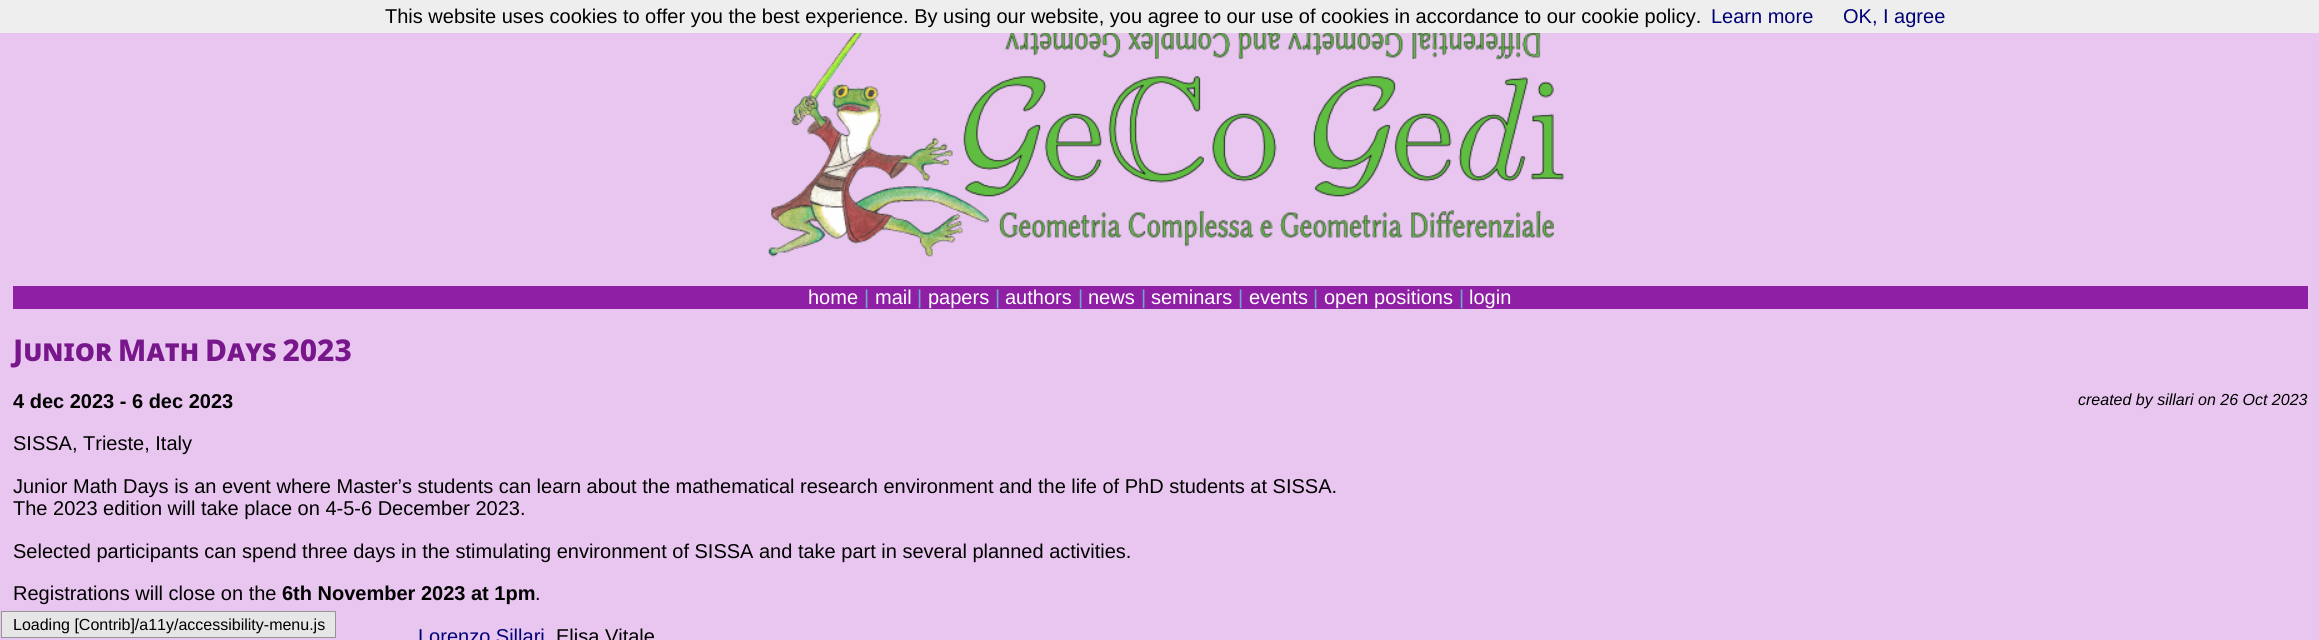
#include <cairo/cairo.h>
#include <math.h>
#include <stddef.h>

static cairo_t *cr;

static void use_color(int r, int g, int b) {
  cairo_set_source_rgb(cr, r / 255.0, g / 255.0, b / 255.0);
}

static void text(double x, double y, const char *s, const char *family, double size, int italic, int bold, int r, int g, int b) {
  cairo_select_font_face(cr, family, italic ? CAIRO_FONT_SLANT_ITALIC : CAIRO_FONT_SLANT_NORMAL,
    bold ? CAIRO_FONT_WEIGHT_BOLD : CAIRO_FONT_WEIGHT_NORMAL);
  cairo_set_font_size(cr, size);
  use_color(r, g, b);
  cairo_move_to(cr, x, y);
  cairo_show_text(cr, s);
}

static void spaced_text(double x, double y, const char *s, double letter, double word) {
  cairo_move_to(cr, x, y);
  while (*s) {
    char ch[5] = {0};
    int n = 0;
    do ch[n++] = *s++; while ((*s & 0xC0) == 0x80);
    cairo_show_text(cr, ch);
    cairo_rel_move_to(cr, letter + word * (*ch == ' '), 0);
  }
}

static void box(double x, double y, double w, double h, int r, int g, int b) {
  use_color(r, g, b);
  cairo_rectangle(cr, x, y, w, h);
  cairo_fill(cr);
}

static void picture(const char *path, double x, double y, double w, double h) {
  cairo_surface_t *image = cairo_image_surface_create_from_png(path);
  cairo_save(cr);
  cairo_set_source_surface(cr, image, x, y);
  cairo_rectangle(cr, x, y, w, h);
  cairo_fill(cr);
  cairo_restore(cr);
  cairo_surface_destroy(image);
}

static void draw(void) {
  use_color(232, 198, 239);
  cairo_paint(cr);
  box(0, 0, 2319, 33, 238, 238, 238);
  picture("img_01.png", 768, 33, 796, 224);
  box(13, 286, 2295, 23, 143, 32, 165);
  use_color(230, 230, 230);
  cairo_rectangle(cr, 1.5, 611.5, 334, 26);
  cairo_fill_preserve(cr);
  use_color(149, 149, 149);
  cairo_set_line_width(cr, 1);
  cairo_stroke(cr);
  text(385, 23, "This website uses cookies to offer you the best experience. By using our website, you agree to our use of cookies in accordance to our cookie policy.", "Liberation Sans", 20, 0, 0, 0, 0, 0);
  text(1711, 23, "Learn more", "Liberation Sans", 20, 0, 0, 0, 0, 119);
  text(1843, 23, "OK, I agree", "Liberation Sans", 20, 0, 0, 0, 0, 119);
  text(808, 304, "home", "Liberation Sans", 20, 0, 0, 255, 255, 255);
  text(864, 304, "|", "Liberation Sans", 20, 0, 0, 109, 167, 201);
  text(875, 304, "mail", "Liberation Sans", 20, 0, 0, 255, 255, 255);
  text(917, 304, "|", "Liberation Sans", 20, 0, 0, 109, 167, 201);
  text(928, 304, "papers", "Liberation Sans", 20, 0, 0, 255, 255, 255);
  text(995, 304, "|", "Liberation Sans", 20, 0, 0, 109, 167, 201);
  text(1005, 304, "authors", "Liberation Sans", 20, 0, 0, 255, 255, 255);
  text(1078, 304, "|", "Liberation Sans", 20, 0, 0, 109, 167, 201);
  text(1088, 304, "news", "Liberation Sans", 20, 0, 0, 255, 255, 255);
  text(1141, 304, "|", "Liberation Sans", 20, 0, 0, 109, 167, 201);
  text(1151, 304, "seminars", "Liberation Sans", 20, 0, 0, 255, 255, 255);
  text(1238, 304, "|", "Liberation Sans", 20, 0, 0, 109, 167, 201);
  text(1249, 304, "events", "Liberation Sans", 20, 0, 0, 255, 255, 255);
  text(1313, 304, "|", "Liberation Sans", 20, 0, 0, 109, 167, 201);
  text(1324, 304, "open positions", "Liberation Sans", 20, 0, 0, 255, 255, 255);
  text(1459, 304, "|", "Liberation Sans", 20, 0, 0, 109, 167, 201);
  text(1469, 304, "login", "Liberation Sans", 20, 0, 0, 255, 255, 255);
  cairo_select_font_face(cr, "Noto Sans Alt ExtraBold", CAIRO_FONT_SLANT_NORMAL, CAIRO_FONT_WEIGHT_NORMAL);
  cairo_set_font_size(cr, 30);
  use_color(120, 23, 139);
  spaced_text(13, 361, "Junior Math Days 2023", 0, -2);
  text(13, 408, "4 dec 2023 - 6 dec 2023", "Liberation Sans", 20, 0, 1, 0, 0, 0);
  text(2078, 405, "created by sillari on 26 Oct 2023", "Liberation Sans", 16, 1, 0, 0, 0, 0);
  text(13, 450, "SISSA, Trieste, Italy", "Liberation Sans", 20, 0, 0, 0, 0, 0);
  text(13, 493, "Junior Math Days is an event where Master’s students can learn about the mathematical research environment and the life of PhD students at SISSA.", "Liberation Sans", 20, 0, 0, 0, 0, 0);
  text(13, 515, "The 2023 edition will take place on 4-5-6 December 2023.", "Liberation Sans", 20, 0, 0, 0, 0, 0);
  text(13, 558, "Selected participants can spend three days in the stimulating environment of SISSA and take part in several planned activities.", "Liberation Sans", 20, 0, 0, 0, 0, 0);
  text(13, 600, "Registrations will close on the", "Liberation Sans", 20, 0, 0, 0, 0, 0);
  text(282, 600, "6th November 2023 at 1pm", "Liberation Sans", 20, 0, 1, 0, 0, 0);
  text(535, 600, ".", "Liberation Sans", 20, 0, 0, 0, 0, 0);
  text(13, 630, "Loading [Contrib]/a11y/accessibility-menu.js", "Liberation Sans", 16, 0, 0, 0, 0, 0);
  text(418, 643, "Lorenzo Sillari", "Liberation Sans", 20, 0, 0, 0, 0, 119);
  text(556, 643, "Elisa Vitale", "Liberation Sans", 20, 0, 0, 0, 0, 0);
}

int main(void) {
  cairo_surface_t *surface = cairo_image_surface_create(CAIRO_FORMAT_RGB24, 2319, 640);
  cr = cairo_create(surface);
  cairo_font_options_t *options = cairo_font_options_create();
  cairo_font_options_set_hint_metrics(options, CAIRO_HINT_METRICS_OFF);
  cairo_font_options_set_hint_style(options, CAIRO_HINT_STYLE_NONE);
  cairo_set_font_options(cr, options);
  cairo_set_miter_limit(cr, 4);
  draw();
  cairo_surface_write_to_png(surface, "out.png");
  cairo_font_options_destroy(options);
  cairo_destroy(cr);
  cairo_surface_destroy(surface);
  return 0;
}
